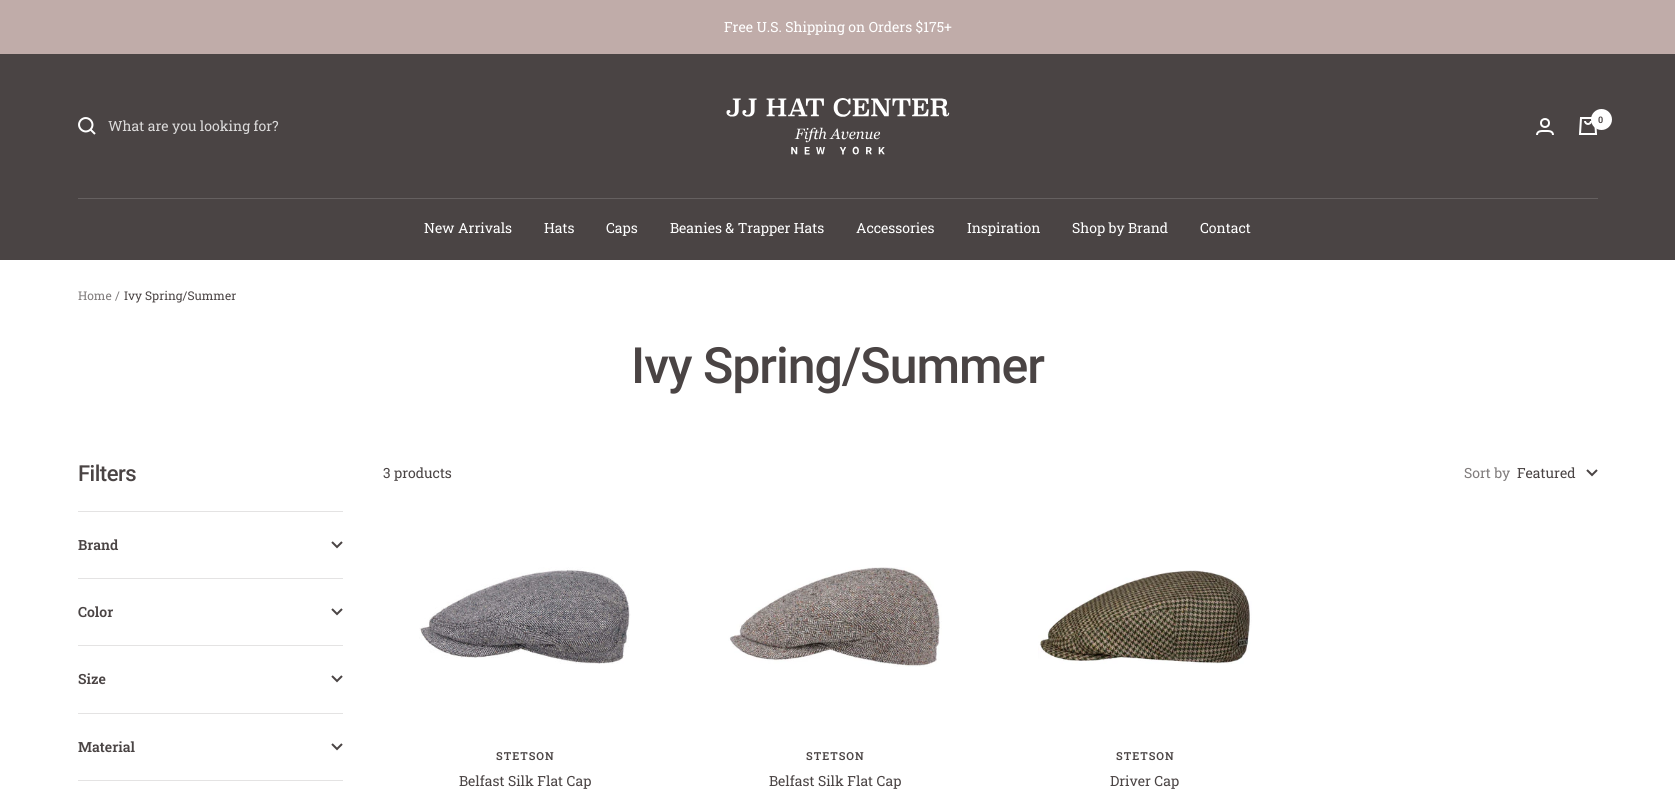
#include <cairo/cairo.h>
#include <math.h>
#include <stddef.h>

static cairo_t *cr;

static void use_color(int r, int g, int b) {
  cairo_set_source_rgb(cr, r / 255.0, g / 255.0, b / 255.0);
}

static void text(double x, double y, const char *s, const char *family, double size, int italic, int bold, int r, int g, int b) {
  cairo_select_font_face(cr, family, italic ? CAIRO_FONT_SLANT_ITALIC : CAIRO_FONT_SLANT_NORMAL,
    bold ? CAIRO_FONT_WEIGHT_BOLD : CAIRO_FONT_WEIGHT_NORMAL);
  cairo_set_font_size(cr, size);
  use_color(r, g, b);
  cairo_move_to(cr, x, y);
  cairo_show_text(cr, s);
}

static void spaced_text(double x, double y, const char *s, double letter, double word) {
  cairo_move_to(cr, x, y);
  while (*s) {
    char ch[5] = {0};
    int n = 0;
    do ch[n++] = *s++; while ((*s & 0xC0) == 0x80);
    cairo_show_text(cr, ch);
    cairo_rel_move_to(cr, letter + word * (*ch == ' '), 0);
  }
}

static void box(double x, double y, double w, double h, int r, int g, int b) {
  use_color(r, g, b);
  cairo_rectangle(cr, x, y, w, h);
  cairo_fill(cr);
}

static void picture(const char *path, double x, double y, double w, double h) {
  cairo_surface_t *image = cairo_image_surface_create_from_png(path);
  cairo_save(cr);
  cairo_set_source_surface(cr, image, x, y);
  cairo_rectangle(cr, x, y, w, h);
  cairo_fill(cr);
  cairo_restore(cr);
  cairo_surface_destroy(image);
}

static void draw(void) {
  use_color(255, 255, 255);
  cairo_paint(cr);
  box(0, 0, 1675, 54, 192, 172, 169);
  box(0, 54, 1675, 206, 74, 68, 68);
  cairo_new_path(cr);
  cairo_move_to(cr, 90.5, 129.5);
  cairo_curve_to(cr, 96.5, 123, 87.5, 114, 81, 120);
  cairo_curve_to(cr, 75, 126.5, 84, 135.5, 90.5, 129.5);
  cairo_close_path(cr);
  cairo_move_to(cr, 90.5, 129.5);
  cairo_line_to(cr, 95, 134);
  use_color(255, 255, 255);
  cairo_stroke(cr);
  picture("img_01.png", 726, 98, 224, 57);
  cairo_arc(cr, 1545, 123, 4, 0, 2 * M_PI);
  cairo_stroke(cr);
  cairo_new_path(cr);
  cairo_move_to(cr, 1537, 135);
  cairo_curve_to(cr, 1537, 130.5, 1542, 131, 1545, 131);
  cairo_curve_to(cr, 1548, 131, 1553, 130.5, 1553, 135);
  cairo_stroke(cr);
  picture("img_02.png", 1578, 117, 20, 18);
  cairo_arc(cr, 1601.5, 119.5, 10.5, 0, 2 * M_PI);
  cairo_fill(cr);
  box(78, 198, 1520, 1, 101, 96, 96);
  box(78, 511, 265, 1, 228, 227, 227);
  cairo_new_path(cr);
  cairo_move_to(cr, 332, 542);
  cairo_line_to(cr, 337, 547);
  cairo_line_to(cr, 342, 542);
  use_color(74, 68, 68);
  cairo_stroke(cr);
  box(78, 578, 265, 1, 228, 227, 227);
  cairo_new_path(cr);
  cairo_move_to(cr, 332, 609);
  cairo_line_to(cr, 337, 614);
  cairo_line_to(cr, 342, 609);
  use_color(74, 68, 68);
  cairo_stroke(cr);
  box(78, 645, 265, 1, 228, 227, 227);
  cairo_new_path(cr);
  cairo_move_to(cr, 332, 676);
  cairo_line_to(cr, 337, 681);
  cairo_line_to(cr, 342, 676);
  use_color(74, 68, 68);
  cairo_stroke(cr);
  box(78, 713, 265, 1, 228, 227, 227);
  cairo_new_path(cr);
  cairo_move_to(cr, 332, 744);
  cairo_line_to(cr, 337, 749);
  cairo_line_to(cr, 342, 744);
  use_color(74, 68, 68);
  cairo_stroke(cr);
  box(78, 780, 265, 1, 228, 227, 227);
  cairo_new_path(cr);
  cairo_move_to(cr, 1587, 470);
  cairo_line_to(cr, 1592, 475);
  cairo_line_to(cr, 1597, 470);
  use_color(74, 68, 68);
  cairo_stroke(cr);
  picture("img_03.png", 419, 567, 212, 97);
  picture("img_04.png", 728, 567, 214, 100);
  picture("img_05.png", 1038, 570, 214, 94);
  text(724, 32, "Free U.S. Shipping on Orders $175+", "Roboto Slab", 14, 0, 0, 255, 255, 255);
  text(108, 131, "What are you looking for?", "Roboto Slab", 14, 0, 0, 219, 218, 218);
  text(1598, 123, "0", "Roboto Slab SemiBold", 9, 0, 0, 74, 68, 68);
  text(424, 233, "New Arrivals", "Roboto Slab", 14, 0, 0, 255, 255, 255);
  text(544, 233, "Hats", "Roboto Slab", 14, 0, 0, 255, 255, 255);
  text(606, 233, "Caps", "Roboto Slab", 14, 0, 0, 255, 255, 255);
  text(670, 233, "Beanies & Trapper Hats", "Roboto Slab", 14, 0, 0, 255, 255, 255);
  text(856, 233, "Accessories", "Roboto Slab", 14, 0, 0, 255, 255, 255);
  text(967, 233, "Inspiration", "Roboto Slab", 14, 0, 0, 255, 255, 255);
  text(1072, 233, "Shop by Brand", "Roboto Slab", 14, 0, 0, 255, 255, 255);
  text(1200, 233, "Contact", "Roboto Slab", 14, 0, 0, 255, 255, 255);
  text(78, 300, "Home", "Roboto Slab", 12, 0, 0, 128, 124, 124);
  text(115, 300, "/", "Roboto Slab", 12, 0, 0, 128, 124, 124);
  text(124, 300, "Ivy Spring/Summer", "Roboto Slab", 12, 0, 0, 74, 68, 68);
  cairo_select_font_face(cr, "Roboto Medium", CAIRO_FONT_SLANT_NORMAL, CAIRO_FONT_WEIGHT_NORMAL);
  cairo_set_font_size(cr, 50);
  spaced_text(631, 383, "Ivy Spring/Summer", -1, 0);
  cairo_set_font_size(cr, 22);
  spaced_text(78, 481, "Filters", -0.5, 0);
  text(78, 550, "Brand", "Roboto Slab SemiBold", 14, 0, 0, 74, 68, 68);
  text(78, 617, "Color", "Roboto Slab SemiBold", 14, 0, 0, 74, 68, 68);
  text(78, 684, "Size", "Roboto Slab SemiBold", 14, 0, 0, 74, 68, 68);
  text(78, 752, "Material", "Roboto Slab SemiBold", 14, 0, 0, 74, 68, 68);
  text(383, 478, "3 products", "Roboto Slab", 14, 0, 0, 74, 68, 68);
  text(1464, 478, "Sort by", "Roboto Slab", 14, 0, 0, 128, 124, 124);
  text(1517, 478, "Featured", "Roboto Slab", 14, 0, 0, 74, 68, 68);
  cairo_select_font_face(cr, "Roboto Slab SemiBold", CAIRO_FONT_SLANT_NORMAL, CAIRO_FONT_WEIGHT_NORMAL);
  cairo_set_font_size(cr, 11);
  spaced_text(496, 760, "STETSON", 1, 0);
  text(459, 786, "Belfast Silk Flat Cap", "Roboto Slab", 14, 0, 0, 74, 68, 68);
  cairo_select_font_face(cr, "Roboto Slab SemiBold", CAIRO_FONT_SLANT_NORMAL, CAIRO_FONT_WEIGHT_NORMAL);
  cairo_set_font_size(cr, 11);
  spaced_text(806, 760, "STETSON", 1, 0);
  text(769, 786, "Belfast Silk Flat Cap", "Roboto Slab", 14, 0, 0, 74, 68, 68);
  cairo_select_font_face(cr, "Roboto Slab SemiBold", CAIRO_FONT_SLANT_NORMAL, CAIRO_FONT_WEIGHT_NORMAL);
  cairo_set_font_size(cr, 11);
  spaced_text(1116, 760, "STETSON", 1, 0);
  text(1110, 786, "Driver Cap", "Roboto Slab", 14, 0, 0, 74, 68, 68);
}

int main(void) {
  cairo_surface_t *surface = cairo_image_surface_create(CAIRO_FORMAT_RGB24, 1675, 805);
  cr = cairo_create(surface);
  cairo_font_options_t *options = cairo_font_options_create();
  cairo_font_options_set_hint_metrics(options, CAIRO_HINT_METRICS_OFF);
  cairo_font_options_set_hint_style(options, CAIRO_HINT_STYLE_NONE);
  cairo_set_font_options(cr, options);
  cairo_set_miter_limit(cr, 4);
  draw();
  cairo_surface_write_to_png(surface, "out.png");
  cairo_font_options_destroy(options);
  cairo_destroy(cr);
  cairo_surface_destroy(surface);
  return 0;
}
